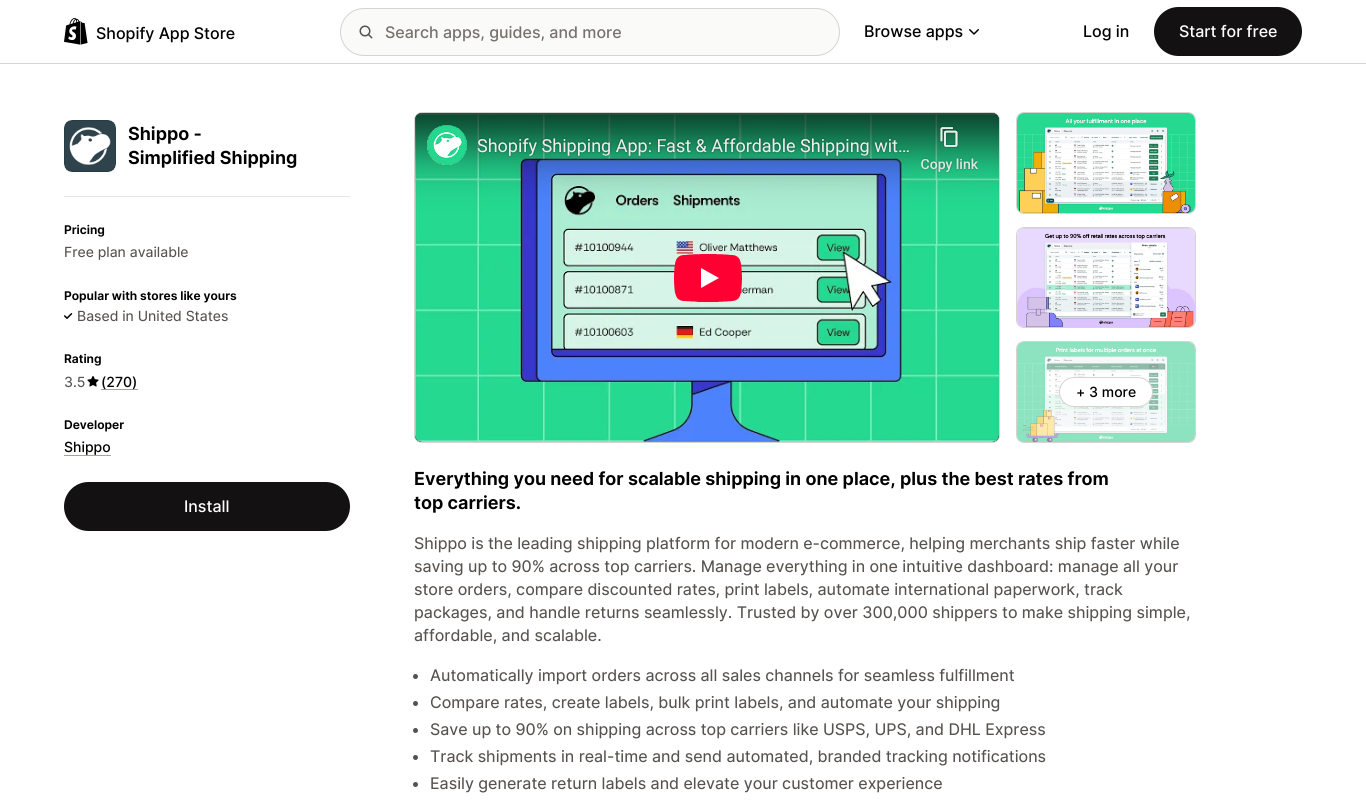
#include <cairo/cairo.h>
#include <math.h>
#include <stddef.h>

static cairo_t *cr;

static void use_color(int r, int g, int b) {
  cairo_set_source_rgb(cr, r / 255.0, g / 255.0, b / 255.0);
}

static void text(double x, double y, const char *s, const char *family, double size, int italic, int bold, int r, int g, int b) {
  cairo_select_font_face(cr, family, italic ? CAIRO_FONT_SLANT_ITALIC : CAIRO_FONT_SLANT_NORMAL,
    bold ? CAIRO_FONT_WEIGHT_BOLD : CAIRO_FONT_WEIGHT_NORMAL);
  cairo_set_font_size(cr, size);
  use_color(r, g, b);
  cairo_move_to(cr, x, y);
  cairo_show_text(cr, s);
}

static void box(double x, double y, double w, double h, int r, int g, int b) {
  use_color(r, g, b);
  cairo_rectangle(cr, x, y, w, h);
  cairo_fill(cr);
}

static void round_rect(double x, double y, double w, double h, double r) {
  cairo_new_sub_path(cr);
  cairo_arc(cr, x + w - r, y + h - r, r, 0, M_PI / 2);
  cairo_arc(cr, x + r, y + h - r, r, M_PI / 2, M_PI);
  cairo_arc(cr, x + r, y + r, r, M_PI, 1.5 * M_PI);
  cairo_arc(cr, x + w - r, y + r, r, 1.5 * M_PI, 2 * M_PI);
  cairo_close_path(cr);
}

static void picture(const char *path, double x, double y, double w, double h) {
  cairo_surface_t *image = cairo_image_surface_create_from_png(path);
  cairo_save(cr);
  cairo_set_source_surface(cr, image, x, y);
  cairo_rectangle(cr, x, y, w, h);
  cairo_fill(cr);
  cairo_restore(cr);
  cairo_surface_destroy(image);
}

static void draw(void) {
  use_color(255, 255, 255);
  cairo_paint(cr);
  box(0, 63, 1366, 1, 214, 211, 209);
  picture("img_01.png", 64, 18, 24, 27);
  use_color(250, 250, 249);
  round_rect(340.5, 8.5, 499, 47, 23.5);
  cairo_fill_preserve(cr);
  use_color(214, 211, 209);
  cairo_set_line_width(cr, 1);
  cairo_stroke(cr);
  picture("img_02.png", 359, 25, 14, 14);
  picture("img_03.png", 969, 29, 10, 6);
  use_color(19, 17, 17);
  round_rect(1154, 7, 148, 49, 24.5);
  cairo_fill(cr);
  picture("img_04.png", 64, 120, 52, 52);
  round_rect(64.5, 120.5, 51, 51, 7.5);
  cairo_set_source_rgba(cr, 0, 0, 0, 0.1);
  cairo_stroke(cr);
  box(64, 196, 286, 1, 231, 229, 228);
  picture("img_05.png", 64, 313, 9, 6);
  picture("img_06.png", 87, 376, 12, 11);
  box(101, 389, 37, 1, 168, 162, 159);
  box(64, 455, 47, 1, 168, 162, 159);
  use_color(19, 17, 17);
  round_rect(64, 482, 286, 49, 24.5);
  cairo_fill(cr);
  round_rect(414.5, 112.5, 585, 330, 7.5);
  use_color(214, 211, 209);
  cairo_stroke(cr);
  picture("img_07.png", 415, 113, 584, 329);
  round_rect(1016.5, 112.5, 179, 101, 7.5);
  cairo_stroke(cr);
  picture("img_08.png", 1017, 113, 178, 100);
  round_rect(1016.5, 227.5, 179, 100, 7.5);
  cairo_stroke(cr);
  picture("img_09.png", 1017, 228, 178, 99);
  round_rect(1016.5, 341.5, 179, 101, 7.5);
  cairo_stroke(cr);
  picture("img_10.png", 1017, 342, 178, 100);
  use_color(255, 255, 255);
  round_rect(1059.5, 377.5, 93, 29, 14.5);
  cairo_fill_preserve(cr);
  use_color(214, 211, 209);
  cairo_stroke(cr);
  use_color(86, 82, 78);
  cairo_arc(cr, 415.5, 676.5, 2.5, 0, 2 * M_PI);
  cairo_fill(cr);
  cairo_arc(cr, 415.5, 703.5, 2.5, 0, 2 * M_PI);
  cairo_fill(cr);
  cairo_arc(cr, 415.5, 730.5, 2.5, 0, 2 * M_PI);
  cairo_fill(cr);
  cairo_arc(cr, 415.5, 757.5, 2.5, 0, 2 * M_PI);
  cairo_fill(cr);
  cairo_arc(cr, 415.5, 784.5, 2.5, 0, 2 * M_PI);
  cairo_fill(cr);
  text(96, 39, "Shopify App Store", "Inter Medium", 16, 0, 0, 0, 0, 0);
  text(385, 38, "Search apps, guides, and more", "Inter Medium", 16, 0, 0, 120, 114, 109);
  text(864, 37, "Browse apps", "Inter Medium", 16, 0, 0, 0, 0, 0);
  text(1083, 37, "Log in", "Inter Medium", 16, 0, 0, 0, 0, 0);
  text(1179, 37, "Start for free", "Inter Medium", 16, 0, 0, 255, 255, 255);
  text(128, 140, "Shippo ‑", "Inter SemiBold", 18, 0, 0, 0, 0, 0);
  text(128, 164, "Simplified Shipping", "Inter SemiBold", 18, 0, 0, 0, 0, 0);
  text(64, 234, "Pricing", "Inter SemiBold", 12, 0, 0, 0, 0, 0);
  text(64, 257, "Free plan available", "Inter", 14, 0, 0, 86, 82, 78);
  text(64, 300, "Popular with stores like yours", "Inter SemiBold", 12, 0, 0, 0, 0, 0);
  text(77, 321, "Based in United States", "Inter", 14, 0, 0, 86, 82, 78);
  text(64, 363, "Rating", "Inter SemiBold", 12, 0, 0, 0, 0, 0);
  text(64, 387, "3.5", "Inter", 14, 0, 0, 86, 82, 78);
  text(101, 387, "(270)", "Inter Medium", 14, 0, 0, 0, 0, 0);
  text(64, 429, "Developer", "Inter SemiBold", 12, 0, 0, 0, 0, 0);
  text(64, 452, "Shippo", "Inter Medium", 14, 0, 0, 0, 0, 0);
  text(184, 512, "Install", "Inter Medium", 16, 0, 0, 255, 255, 255);
  text(1076, 397, "+ 3 more", "Inter Medium", 14, 0, 0, 0, 0, 0);
  text(414, 485, "Everything you need for scalable shipping in one place, plus the best rates from", "Inter SemiBold", 18, 0, 0, 0, 0, 0);
  text(414, 509, "top carriers.", "Inter SemiBold", 18, 0, 0, 0, 0, 0);
  text(414, 549, "Shippo is the leading shipping platform for modern e-commerce, helping merchants ship faster while", "Inter", 16, 0, 0, 86, 82, 78);
  text(414, 572, "saving up to 90% across top carriers. Manage everything in one intuitive dashboard: manage all your", "Inter", 16, 0, 0, 86, 82, 78);
  text(414, 595, "store orders, compare discounted rates, print labels, automate international paperwork, track", "Inter", 16, 0, 0, 86, 82, 78);
  text(414, 618, "packages, and handle returns seamlessly. Trusted by over 300,000 shippers to make shipping simple,", "Inter", 16, 0, 0, 86, 82, 78);
  text(414, 641, "affordable, and scalable.", "Inter", 16, 0, 0, 86, 82, 78);
  text(430, 681, "Automatically import orders across all sales channels for seamless fulfillment", "Inter", 16, 0, 0, 86, 82, 78);
  text(430, 708, "Compare rates, create labels, bulk print labels, and automate your shipping", "Inter", 16, 0, 0, 86, 82, 78);
  text(430, 735, "Save up to 90% on shipping across top carriers like USPS, UPS, and DHL Express", "Inter", 16, 0, 0, 86, 82, 78);
  text(430, 762, "Track shipments in real-time and send automated, branded tracking notifications", "Inter", 16, 0, 0, 86, 82, 78);
  text(430, 789, "Easily generate return labels and elevate your customer experience", "Inter", 16, 0, 0, 86, 82, 78);
}

int main(void) {
  cairo_surface_t *surface = cairo_image_surface_create(CAIRO_FORMAT_RGB24, 1366, 808);
  cr = cairo_create(surface);
  cairo_font_options_t *options = cairo_font_options_create();
  cairo_font_options_set_hint_metrics(options, CAIRO_HINT_METRICS_OFF);
  cairo_font_options_set_hint_style(options, CAIRO_HINT_STYLE_NONE);
  cairo_set_font_options(cr, options);
  cairo_set_miter_limit(cr, 4);
  draw();
  cairo_surface_write_to_png(surface, "out.png");
  cairo_font_options_destroy(options);
  cairo_destroy(cr);
  cairo_surface_destroy(surface);
  return 0;
}
